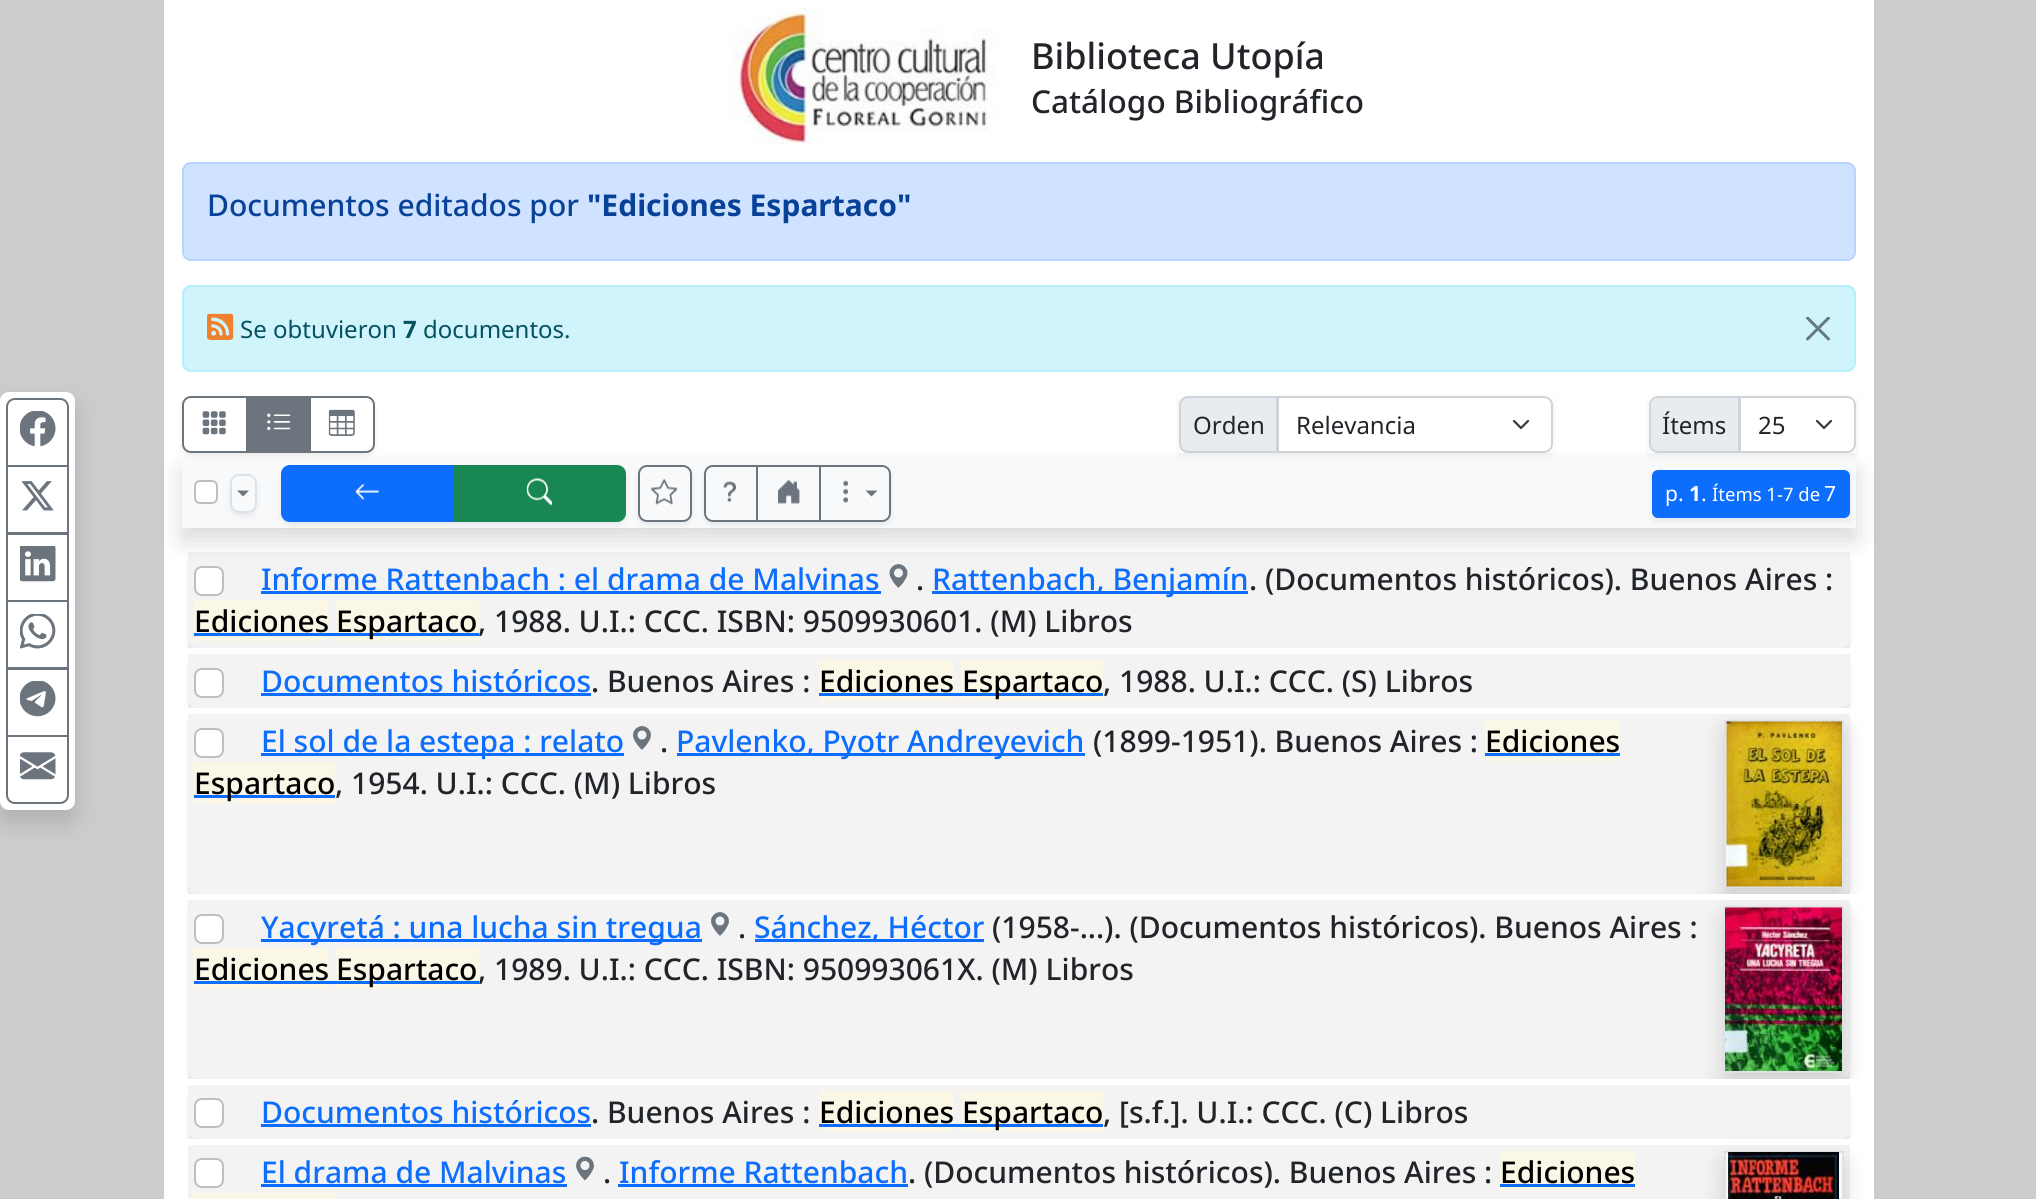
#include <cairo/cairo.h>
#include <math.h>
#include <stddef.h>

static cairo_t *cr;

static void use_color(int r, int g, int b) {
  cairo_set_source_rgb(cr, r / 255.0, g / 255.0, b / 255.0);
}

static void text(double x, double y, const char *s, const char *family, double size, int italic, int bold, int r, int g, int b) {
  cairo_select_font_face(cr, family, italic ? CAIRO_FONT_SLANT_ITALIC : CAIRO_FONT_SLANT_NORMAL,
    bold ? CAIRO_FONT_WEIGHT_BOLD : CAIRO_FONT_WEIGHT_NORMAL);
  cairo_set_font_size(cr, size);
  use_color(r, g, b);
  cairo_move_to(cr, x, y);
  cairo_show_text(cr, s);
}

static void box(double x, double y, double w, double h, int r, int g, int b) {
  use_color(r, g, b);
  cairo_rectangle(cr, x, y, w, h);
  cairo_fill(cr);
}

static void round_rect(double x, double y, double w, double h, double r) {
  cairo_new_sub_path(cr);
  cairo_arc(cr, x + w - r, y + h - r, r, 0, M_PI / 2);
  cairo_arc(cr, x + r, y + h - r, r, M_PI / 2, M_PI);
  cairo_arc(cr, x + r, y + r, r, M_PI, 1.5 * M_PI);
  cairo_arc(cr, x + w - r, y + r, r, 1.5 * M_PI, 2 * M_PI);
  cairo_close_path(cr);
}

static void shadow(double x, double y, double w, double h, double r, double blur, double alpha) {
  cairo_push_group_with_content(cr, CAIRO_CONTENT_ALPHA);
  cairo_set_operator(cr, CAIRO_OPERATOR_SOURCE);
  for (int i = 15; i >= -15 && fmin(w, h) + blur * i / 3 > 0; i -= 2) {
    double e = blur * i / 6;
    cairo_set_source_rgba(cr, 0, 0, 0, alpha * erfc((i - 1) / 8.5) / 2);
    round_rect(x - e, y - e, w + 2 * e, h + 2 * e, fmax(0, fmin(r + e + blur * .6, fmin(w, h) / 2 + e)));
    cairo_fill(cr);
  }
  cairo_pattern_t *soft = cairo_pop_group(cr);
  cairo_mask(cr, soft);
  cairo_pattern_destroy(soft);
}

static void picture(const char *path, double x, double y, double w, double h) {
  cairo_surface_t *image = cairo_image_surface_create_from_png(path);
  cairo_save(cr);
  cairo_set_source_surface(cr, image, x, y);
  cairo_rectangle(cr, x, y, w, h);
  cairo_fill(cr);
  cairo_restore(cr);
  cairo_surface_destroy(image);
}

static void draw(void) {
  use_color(204, 204, 204);
  cairo_paint(cr);
  box(164, 0, 1710, 1199, 255, 255, 255);
  picture("img_01.png", 730, 6, 265, 139);
  use_color(0, 0, 0);
  shadow(0, 404, 75, 418, 9, 12, 0.15);
  use_color(255, 255, 255);
  round_rect(0, 392, 75, 418, 9);
  cairo_fill(cr);
  cairo_new_path(cr);
  cairo_move_to(cr, 15, 399);
  cairo_line_to(cr, 60, 399);
  cairo_curve_to(cr, 64.5, 399, 68, 402.5, 68, 407);
  cairo_line_to(cr, 68, 466);
  cairo_line_to(cr, 7, 466);
  cairo_line_to(cr, 7, 407);
  cairo_curve_to(cr, 7, 402.5, 10.5, 399, 15, 399);
  cairo_close_path(cr);
  use_color(108, 117, 125);
  cairo_stroke(cr);
  picture("img_02.png", 20, 411, 36, 36);
  cairo_rectangle(cr, 7, 466, 61, 67);
  cairo_stroke(cr);
  picture("img_03.png", 21, 481, 33, 30);
  cairo_rectangle(cr, 7, 534, 61, 67);
  cairo_stroke(cr);
  picture("img_04.png", 20, 546, 36, 36);
  cairo_rectangle(cr, 7, 601, 61, 67);
  cairo_stroke(cr);
  picture("img_05.png", 20, 614, 36, 35);
  cairo_rectangle(cr, 7, 669, 61, 67);
  cairo_stroke(cr);
  picture("img_06.png", 20, 681, 36, 36);
  cairo_new_path(cr);
  cairo_move_to(cr, 7, 736);
  cairo_line_to(cr, 68, 736);
  cairo_line_to(cr, 68, 795);
  cairo_curve_to(cr, 68, 799.5, 64.5, 803, 60, 803);
  cairo_line_to(cr, 15, 803);
  cairo_curve_to(cr, 10.5, 803, 7, 799.5, 7, 795);
  cairo_close_path(cr);
  cairo_stroke(cr);
  picture("img_07.png", 20, 752, 36, 28);
  use_color(207, 226, 255);
  round_rect(183, 163, 1672, 97, 8);
  cairo_fill_preserve(cr);
  use_color(182, 212, 254);
  cairo_stroke(cr);
  use_color(207, 244, 252);
  round_rect(183, 286, 1672, 85, 8);
  cairo_fill_preserve(cr);
  use_color(182, 239, 251);
  cairo_stroke(cr);
  picture("img_08.png", 207, 313, 27, 27);
  picture("img_09.png", 1806, 317, 24, 24);
  cairo_save(cr);
  cairo_set_fill_rule(cr, CAIRO_FILL_RULE_EVEN_ODD);
  cairo_new_path(cr);
  cairo_move_to(cr, 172, 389);
  cairo_line_to(cr, 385, 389);
  cairo_line_to(cr, 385, 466);
  cairo_line_to(cr, 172, 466);
  cairo_close_path(cr);
  cairo_move_to(cr, 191, 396);
  cairo_line_to(cr, 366, 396);
  cairo_curve_to(cr, 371, 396, 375, 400, 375, 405);
  cairo_line_to(cr, 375, 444);
  cairo_curve_to(cr, 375, 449, 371, 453, 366, 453);
  cairo_line_to(cr, 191, 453);
  cairo_curve_to(cr, 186, 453, 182, 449, 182, 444);
  cairo_line_to(cr, 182, 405);
  cairo_curve_to(cr, 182, 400, 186, 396, 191, 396);
  cairo_close_path(cr);
  cairo_clip(cr);
  use_color(0, 0, 0);
  shadow(182, 399, 193, 57, 9, 3, 0.07);
  cairo_restore(cr);
  cairo_new_path(cr);
  cairo_move_to(cr, 191, 397);
  cairo_line_to(cr, 247, 397);
  cairo_line_to(cr, 247, 452);
  cairo_line_to(cr, 191, 452);
  cairo_curve_to(cr, 186.5, 452, 183, 448.5, 183, 444);
  cairo_line_to(cr, 183, 405);
  cairo_curve_to(cr, 183, 400.5, 186.5, 397, 191, 397);
  cairo_close_path(cr);
  use_color(108, 117, 125);
  cairo_stroke(cr);
  picture("img_10.png", 202, 411, 24, 24);
  box(248, 396, 61, 57, 108, 117, 125);
  picture("img_11.png", 267, 413, 24, 17);
  cairo_new_path(cr);
  cairo_move_to(cr, 310, 397);
  cairo_line_to(cr, 366, 397);
  cairo_curve_to(cr, 370.5, 397, 374, 400.5, 374, 405);
  cairo_line_to(cr, 374, 444);
  cairo_curve_to(cr, 374, 448.5, 370.5, 452, 366, 452);
  cairo_line_to(cr, 310, 452);
  cairo_close_path(cr);
  cairo_stroke(cr);
  picture("img_12.png", 328, 409, 27, 27);
  cairo_save(cr);
  cairo_set_fill_rule(cr, CAIRO_FILL_RULE_EVEN_ODD);
  cairo_new_path(cr);
  cairo_move_to(cr, 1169, 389);
  cairo_line_to(cr, 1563, 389);
  cairo_line_to(cr, 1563, 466);
  cairo_line_to(cr, 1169, 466);
  cairo_close_path(cr);
  cairo_move_to(cr, 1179, 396);
  cairo_line_to(cr, 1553, 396);
  cairo_line_to(cr, 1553, 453);
  cairo_line_to(cr, 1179, 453);
  cairo_close_path(cr);
  cairo_clip(cr);
  use_color(0, 0, 0);
  shadow(1179, 399, 374, 57, 0, 3, 0.07);
  cairo_restore(cr);
  use_color(233, 236, 239);
  cairo_new_path(cr);
  cairo_move_to(cr, 1188, 397);
  cairo_line_to(cr, 1277, 397);
  cairo_line_to(cr, 1277, 452);
  cairo_line_to(cr, 1188, 452);
  cairo_curve_to(cr, 1183.5, 452, 1180, 448.5, 1180, 444);
  cairo_line_to(cr, 1180, 405);
  cairo_curve_to(cr, 1180, 400.5, 1183.5, 397, 1188, 397);
  cairo_close_path(cr);
  cairo_fill_preserve(cr);
  use_color(206, 212, 218);
  cairo_stroke(cr);
  use_color(255, 255, 255);
  cairo_new_path(cr);
  cairo_move_to(cr, 1277, 396);
  cairo_line_to(cr, 1544, 396);
  cairo_curve_to(cr, 1549, 396, 1553, 400, 1553, 405);
  cairo_line_to(cr, 1553, 444);
  cairo_curve_to(cr, 1553, 449, 1549, 453, 1544, 453);
  cairo_line_to(cr, 1277, 453);
  cairo_close_path(cr);
  cairo_fill(cr);
  cairo_new_path(cr);
  cairo_move_to(cr, 1514, 421);
  cairo_line_to(cr, 1521, 428);
  cairo_line_to(cr, 1528, 421);
  use_color(52, 58, 64);
  cairo_set_line_width(cr, 2.2);
  cairo_set_line_cap(cr, CAIRO_LINE_CAP_ROUND);
  cairo_set_line_join(cr, CAIRO_LINE_JOIN_ROUND);
  cairo_stroke(cr);
  cairo_new_path(cr);
  cairo_move_to(cr, 1278, 397);
  cairo_line_to(cr, 1544, 397);
  cairo_curve_to(cr, 1548.5, 397, 1552, 400.5, 1552, 405);
  cairo_line_to(cr, 1552, 444);
  cairo_curve_to(cr, 1552, 448.5, 1548.5, 452, 1544, 452);
  cairo_line_to(cr, 1278, 452);
  cairo_close_path(cr);
  use_color(206, 212, 218);
  cairo_set_line_width(cr, 2);
  cairo_set_line_cap(cr, CAIRO_LINE_CAP_BUTT);
  cairo_set_line_join(cr, CAIRO_LINE_JOIN_MITER);
  cairo_stroke(cr);
  cairo_save(cr);
  cairo_set_fill_rule(cr, CAIRO_FILL_RULE_EVEN_ODD);
  cairo_new_path(cr);
  cairo_move_to(cr, 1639, 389);
  cairo_line_to(cr, 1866, 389);
  cairo_line_to(cr, 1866, 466);
  cairo_line_to(cr, 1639, 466);
  cairo_close_path(cr);
  cairo_move_to(cr, 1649, 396);
  cairo_line_to(cr, 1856, 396);
  cairo_line_to(cr, 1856, 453);
  cairo_line_to(cr, 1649, 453);
  cairo_close_path(cr);
  cairo_clip(cr);
  use_color(0, 0, 0);
  shadow(1649, 399, 207, 57, 0, 3, 0.07);
  cairo_restore(cr);
  use_color(233, 236, 239);
  cairo_new_path(cr);
  cairo_move_to(cr, 1658, 397);
  cairo_line_to(cr, 1739, 397);
  cairo_line_to(cr, 1739, 452);
  cairo_line_to(cr, 1658, 452);
  cairo_curve_to(cr, 1653.5, 452, 1650, 448.5, 1650, 444);
  cairo_line_to(cr, 1650, 405);
  cairo_curve_to(cr, 1650, 400.5, 1653.5, 397, 1658, 397);
  cairo_close_path(cr);
  cairo_fill_preserve(cr);
  use_color(206, 212, 218);
  cairo_stroke(cr);
  use_color(255, 255, 255);
  cairo_new_path(cr);
  cairo_move_to(cr, 1739, 396);
  cairo_line_to(cr, 1847, 396);
  cairo_curve_to(cr, 1852, 396, 1856, 400, 1856, 405);
  cairo_line_to(cr, 1856, 444);
  cairo_curve_to(cr, 1856, 449, 1852, 453, 1847, 453);
  cairo_line_to(cr, 1739, 453);
  cairo_close_path(cr);
  cairo_fill(cr);
  cairo_new_path(cr);
  cairo_move_to(cr, 1817, 421);
  cairo_line_to(cr, 1824, 428);
  cairo_line_to(cr, 1831, 421);
  use_color(52, 58, 64);
  cairo_set_line_width(cr, 2.2);
  cairo_set_line_cap(cr, CAIRO_LINE_CAP_ROUND);
  cairo_set_line_join(cr, CAIRO_LINE_JOIN_ROUND);
  cairo_stroke(cr);
  cairo_new_path(cr);
  cairo_move_to(cr, 1740, 397);
  cairo_line_to(cr, 1847, 397);
  cairo_curve_to(cr, 1851.5, 397, 1855, 400.5, 1855, 405);
  cairo_line_to(cr, 1855, 444);
  cairo_curve_to(cr, 1855, 448.5, 1851.5, 452, 1847, 452);
  cairo_line_to(cr, 1740, 452);
  cairo_close_path(cr);
  use_color(206, 212, 218);
  cairo_set_line_width(cr, 2);
  cairo_set_line_cap(cr, CAIRO_LINE_CAP_BUTT);
  cairo_set_line_join(cr, CAIRO_LINE_JOIN_MITER);
  cairo_stroke(cr);
  cairo_save(cr);
  cairo_rectangle(cr, 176, 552, 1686, 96);
  cairo_clip(cr);
  cairo_set_fill_rule(cr, CAIRO_FILL_RULE_EVEN_ODD);
  cairo_new_path(cr);
  cairo_move_to(cr, 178, 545);
  cairo_line_to(cr, 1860, 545);
  cairo_line_to(cr, 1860, 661);
  cairo_line_to(cr, 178, 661);
  cairo_close_path(cr);
  cairo_move_to(cr, 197, 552);
  cairo_line_to(cr, 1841, 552);
  cairo_curve_to(cr, 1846, 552, 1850, 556, 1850, 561);
  cairo_line_to(cr, 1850, 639);
  cairo_curve_to(cr, 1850, 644, 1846, 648, 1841, 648);
  cairo_line_to(cr, 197, 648);
  cairo_curve_to(cr, 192, 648, 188, 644, 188, 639);
  cairo_line_to(cr, 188, 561);
  cairo_curve_to(cr, 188, 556, 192, 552, 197, 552);
  cairo_close_path(cr);
  cairo_clip(cr);
  use_color(0, 0, 0);
  shadow(188, 555, 1662, 96, 9, 3, 0.07);
  cairo_restore(cr);
  cairo_set_source_rgba(cr, 0, 0, 0, 0.05);
  cairo_rectangle(cr, 188, 552, 1662, 96);
  cairo_fill(cr);
  use_color(255, 255, 255);
  round_rect(194, 566, 30, 30, 8);
  cairo_fill(cr);
  round_rect(195, 567, 28, 28, 7);
  cairo_set_source_rgba(cr, 0, 0, 0, 0.25);
  cairo_stroke(cr);
  picture("img_19.png", 889, 564, 19, 24);
  use_color(0, 0, 0);
  shadow(182, 471, 1674, 69, 0, 12, 0.15);
  box(182, 459, 1674, 69, 248, 249, 250);
  use_color(255, 255, 255);
  round_rect(195, 481, 22, 22, 5);
  cairo_fill_preserve(cr);
  use_color(191, 191, 191);
  cairo_stroke(cr);
  cairo_save(cr);
  cairo_set_fill_rule(cr, CAIRO_FILL_RULE_EVEN_ODD);
  cairo_new_path(cr);
  cairo_move_to(cr, 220, 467);
  cairo_line_to(cr, 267, 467);
  cairo_line_to(cr, 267, 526);
  cairo_line_to(cr, 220, 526);
  cairo_close_path(cr);
  cairo_move_to(cr, 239, 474);
  cairo_line_to(cr, 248, 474);
  cairo_curve_to(cr, 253, 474, 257, 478, 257, 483);
  cairo_line_to(cr, 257, 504);
  cairo_curve_to(cr, 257, 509, 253, 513, 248, 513);
  cairo_line_to(cr, 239, 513);
  cairo_curve_to(cr, 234, 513, 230, 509, 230, 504);
  cairo_line_to(cr, 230, 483);
  cairo_curve_to(cr, 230, 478, 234, 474, 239, 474);
  cairo_close_path(cr);
  cairo_clip(cr);
  use_color(0, 0, 0);
  shadow(230, 477, 27, 39, 9, 3, 0.07);
  cairo_restore(cr);
  round_rect(231, 475, 25, 37, 8);
  use_color(222, 226, 230);
  cairo_stroke(cr);
  use_color(108, 117, 125);
  cairo_new_path(cr);
  cairo_move_to(cr, 237, 490.5);
  cairo_line_to(cr, 249, 490.5);
  cairo_line_to(cr, 243, 496.5);
  cairo_close_path(cr);
  cairo_fill(cr);
  use_color(0, 0, 0);
  shadow(281, 468, 345, 57, 9, 3, 0.07);
  use_color(13, 110, 253);
  cairo_new_path(cr);
  cairo_move_to(cr, 290, 466);
  cairo_line_to(cr, 454, 466);
  cairo_line_to(cr, 454, 521);
  cairo_line_to(cr, 290, 521);
  cairo_curve_to(cr, 285.5, 521, 282, 517.5, 282, 513);
  cairo_line_to(cr, 282, 474);
  cairo_curve_to(cr, 282, 469.5, 285.5, 466, 290, 466);
  cairo_close_path(cr);
  cairo_fill_preserve(cr);
  cairo_stroke(cr);
  picture("img_13.png", 355, 483, 24, 17);
  use_color(25, 135, 84);
  cairo_new_path(cr);
  cairo_move_to(cr, 454, 466);
  cairo_line_to(cr, 617, 466);
  cairo_curve_to(cr, 621.5, 466, 625, 469.5, 625, 474);
  cairo_line_to(cr, 625, 513);
  cairo_curve_to(cr, 625, 517.5, 621.5, 521, 617, 521);
  cairo_line_to(cr, 454, 521);
  cairo_close_path(cr);
  cairo_fill_preserve(cr);
  cairo_stroke(cr);
  picture("img_14.png", 526, 478, 26, 28);
  cairo_save(cr);
  cairo_set_fill_rule(cr, CAIRO_FILL_RULE_EVEN_ODD);
  cairo_new_path(cr);
  cairo_move_to(cr, 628, 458);
  cairo_line_to(cr, 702, 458);
  cairo_line_to(cr, 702, 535);
  cairo_line_to(cr, 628, 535);
  cairo_close_path(cr);
  cairo_move_to(cr, 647, 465);
  cairo_line_to(cr, 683, 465);
  cairo_curve_to(cr, 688, 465, 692, 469, 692, 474);
  cairo_line_to(cr, 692, 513);
  cairo_curve_to(cr, 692, 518, 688, 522, 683, 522);
  cairo_line_to(cr, 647, 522);
  cairo_curve_to(cr, 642, 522, 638, 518, 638, 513);
  cairo_line_to(cr, 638, 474);
  cairo_curve_to(cr, 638, 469, 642, 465, 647, 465);
  cairo_close_path(cr);
  cairo_clip(cr);
  use_color(0, 0, 0);
  shadow(638, 468, 54, 57, 9, 3, 0.07);
  cairo_restore(cr);
  round_rect(639, 466, 52, 55, 8);
  use_color(108, 117, 125);
  cairo_stroke(cr);
  picture("img_15.png", 651, 478, 27, 27);
  cairo_save(cr);
  cairo_set_fill_rule(cr, CAIRO_FILL_RULE_EVEN_ODD);
  cairo_new_path(cr);
  cairo_move_to(cr, 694, 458);
  cairo_line_to(cr, 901, 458);
  cairo_line_to(cr, 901, 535);
  cairo_line_to(cr, 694, 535);
  cairo_close_path(cr);
  cairo_move_to(cr, 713, 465);
  cairo_line_to(cr, 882, 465);
  cairo_curve_to(cr, 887, 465, 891, 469, 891, 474);
  cairo_line_to(cr, 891, 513);
  cairo_curve_to(cr, 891, 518, 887, 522, 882, 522);
  cairo_line_to(cr, 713, 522);
  cairo_curve_to(cr, 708, 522, 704, 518, 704, 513);
  cairo_line_to(cr, 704, 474);
  cairo_curve_to(cr, 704, 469, 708, 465, 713, 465);
  cairo_close_path(cr);
  cairo_clip(cr);
  use_color(0, 0, 0);
  shadow(704, 468, 187, 57, 9, 3, 0.07);
  cairo_restore(cr);
  cairo_new_path(cr);
  cairo_move_to(cr, 713, 466);
  cairo_line_to(cr, 757, 466);
  cairo_line_to(cr, 757, 521);
  cairo_line_to(cr, 713, 521);
  cairo_curve_to(cr, 708.5, 521, 705, 517.5, 705, 513);
  cairo_line_to(cr, 705, 474);
  cairo_curve_to(cr, 705, 469.5, 708.5, 466, 713, 466);
  cairo_close_path(cr);
  cairo_stroke(cr);
  picture("img_16.png", 723, 481, 14, 21);
  cairo_rectangle(cr, 757, 466, 63, 55);
  cairo_stroke(cr);
  picture("img_17.png", 778, 479, 22, 25);
  cairo_new_path(cr);
  cairo_move_to(cr, 820, 466);
  cairo_line_to(cr, 882, 466);
  cairo_curve_to(cr, 886.5, 466, 890, 469.5, 890, 474);
  cairo_line_to(cr, 890, 513);
  cairo_curve_to(cr, 890, 517.5, 886.5, 521, 882, 521);
  cairo_line_to(cr, 820, 521);
  cairo_close_path(cr);
  cairo_stroke(cr);
  picture("img_18.png", 843, 480, 6, 23);
  cairo_new_path(cr);
  cairo_move_to(cr, 865.5, 490.5);
  cairo_line_to(cr, 877.5, 490.5);
  cairo_line_to(cr, 871.5, 496.5);
  cairo_close_path(cr);
  cairo_fill(cr);
  use_color(0, 0, 0);
  shadow(1652, 473, 198, 48, 0, 3, 0.07);
  use_color(13, 110, 253);
  round_rect(1653, 471, 196, 46, 5);
  cairo_fill_preserve(cr);
  cairo_stroke(cr);
  box(261, 591, 620, 3, 13, 110, 253);
  box(932, 591, 316, 3, 13, 110, 253);
  box(194, 600, 135, 41, 250, 247, 231);
  box(336, 600, 143, 41, 250, 247, 231);
  box(194, 633, 142, 3, 13, 110, 253);
  box(336, 633, 143, 3, 13, 110, 253);
  cairo_save(cr);
  cairo_rectangle(cr, 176, 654, 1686, 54);
  cairo_clip(cr);
  cairo_set_fill_rule(cr, CAIRO_FILL_RULE_EVEN_ODD);
  cairo_new_path(cr);
  cairo_move_to(cr, 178, 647);
  cairo_line_to(cr, 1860, 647);
  cairo_line_to(cr, 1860, 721);
  cairo_line_to(cr, 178, 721);
  cairo_close_path(cr);
  cairo_move_to(cr, 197, 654);
  cairo_line_to(cr, 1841, 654);
  cairo_curve_to(cr, 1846, 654, 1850, 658, 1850, 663);
  cairo_line_to(cr, 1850, 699);
  cairo_curve_to(cr, 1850, 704, 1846, 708, 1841, 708);
  cairo_line_to(cr, 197, 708);
  cairo_curve_to(cr, 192, 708, 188, 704, 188, 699);
  cairo_line_to(cr, 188, 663);
  cairo_curve_to(cr, 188, 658, 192, 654, 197, 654);
  cairo_close_path(cr);
  cairo_clip(cr);
  use_color(0, 0, 0);
  shadow(188, 657, 1662, 54, 9, 3, 0.07);
  cairo_restore(cr);
  cairo_set_source_rgba(cr, 0, 0, 0, 0.05);
  cairo_rectangle(cr, 188, 654, 1662, 54);
  cairo_fill(cr);
  use_color(255, 255, 255);
  round_rect(194, 668, 30, 30, 8);
  cairo_fill(cr);
  round_rect(195, 669, 28, 28, 7);
  cairo_set_source_rgba(cr, 0, 0, 0, 0.25);
  cairo_stroke(cr);
  box(261, 693, 330, 3, 13, 110, 253);
  box(819, 660, 135, 41, 250, 247, 231);
  box(819, 693, 143, 3, 13, 110, 253);
  box(962, 660, 141, 41, 250, 247, 231);
  box(962, 693, 141, 3, 13, 110, 253);
  cairo_save(cr);
  cairo_rectangle(cr, 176, 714, 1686, 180);
  cairo_clip(cr);
  cairo_set_fill_rule(cr, CAIRO_FILL_RULE_EVEN_ODD);
  cairo_new_path(cr);
  cairo_move_to(cr, 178, 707);
  cairo_line_to(cr, 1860, 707);
  cairo_line_to(cr, 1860, 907);
  cairo_line_to(cr, 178, 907);
  cairo_close_path(cr);
  cairo_move_to(cr, 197, 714);
  cairo_line_to(cr, 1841, 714);
  cairo_curve_to(cr, 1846, 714, 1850, 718, 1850, 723);
  cairo_line_to(cr, 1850, 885);
  cairo_curve_to(cr, 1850, 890, 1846, 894, 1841, 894);
  cairo_line_to(cr, 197, 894);
  cairo_curve_to(cr, 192, 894, 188, 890, 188, 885);
  cairo_line_to(cr, 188, 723);
  cairo_curve_to(cr, 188, 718, 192, 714, 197, 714);
  cairo_close_path(cr);
  cairo_clip(cr);
  use_color(0, 0, 0);
  shadow(188, 717, 1662, 180, 9, 3, 0.07);
  cairo_restore(cr);
  cairo_set_source_rgba(cr, 0, 0, 0, 0.05);
  cairo_rectangle(cr, 188, 714, 1662, 180);
  cairo_fill(cr);
  use_color(255, 255, 255);
  round_rect(194, 728, 30, 30, 8);
  cairo_fill(cr);
  round_rect(195, 729, 28, 28, 7);
  cairo_set_source_rgba(cr, 0, 0, 0, 0.25);
  cairo_stroke(cr);
  box(261, 753, 363, 3, 13, 110, 253);
  picture("img_20.png", 633, 726, 18, 24);
  box(677, 753, 408, 3, 13, 110, 253);
  box(1485, 720, 135, 41, 250, 247, 231);
  box(1485, 753, 135, 3, 13, 110, 253);
  cairo_save(cr);
  cairo_rectangle(cr, 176, 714, 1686, 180);
  cairo_clip(cr);
  use_color(0, 0, 0);
  shadow(1724, 732, 120, 168, 0, 12, 0.15);
  cairo_restore(cr);
  box(1726, 722, 1, 164, 248, 249, 250);
  cairo_rectangle(cr, 1725, 721, 118, 166);
  use_color(222, 226, 230);
  cairo_stroke(cr);
  picture("img_21.png", 1726, 721, 116, 166);
  box(194, 762, 141, 41, 250, 247, 231);
  box(194, 795, 141, 3, 13, 110, 253);
  cairo_save(cr);
  cairo_rectangle(cr, 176, 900, 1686, 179);
  cairo_clip(cr);
  cairo_set_fill_rule(cr, CAIRO_FILL_RULE_EVEN_ODD);
  cairo_new_path(cr);
  cairo_move_to(cr, 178, 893);
  cairo_line_to(cr, 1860, 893);
  cairo_line_to(cr, 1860, 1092);
  cairo_line_to(cr, 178, 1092);
  cairo_close_path(cr);
  cairo_move_to(cr, 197, 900);
  cairo_line_to(cr, 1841, 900);
  cairo_curve_to(cr, 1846, 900, 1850, 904, 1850, 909);
  cairo_line_to(cr, 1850, 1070);
  cairo_curve_to(cr, 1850, 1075, 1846, 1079, 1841, 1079);
  cairo_line_to(cr, 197, 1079);
  cairo_curve_to(cr, 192, 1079, 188, 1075, 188, 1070);
  cairo_line_to(cr, 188, 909);
  cairo_curve_to(cr, 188, 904, 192, 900, 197, 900);
  cairo_close_path(cr);
  cairo_clip(cr);
  use_color(0, 0, 0);
  shadow(188, 903, 1662, 179, 9, 3, 0.07);
  cairo_restore(cr);
  cairo_set_source_rgba(cr, 0, 0, 0, 0.05);
  cairo_rectangle(cr, 188, 900, 1662, 179);
  cairo_fill(cr);
  use_color(255, 255, 255);
  round_rect(194, 914, 30, 30, 8);
  cairo_fill(cr);
  round_rect(195, 915, 28, 28, 7);
  cairo_set_source_rgba(cr, 0, 0, 0, 0.25);
  cairo_stroke(cr);
  box(261, 939, 441, 3, 13, 110, 253);
  picture("img_22.png", 711, 912, 18, 24);
  box(755, 939, 229, 3, 13, 110, 253);
  cairo_save(cr);
  cairo_rectangle(cr, 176, 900, 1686, 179);
  cairo_clip(cr);
  use_color(0, 0, 0);
  shadow(1724, 918, 120, 167, 0, 12, 0.15);
  cairo_restore(cr);
  cairo_rectangle(cr, 1725, 907, 118, 165);
  use_color(222, 226, 230);
  cairo_stroke(cr);
  picture("img_23.png", 1725, 907, 117, 164);
  box(194, 948, 135, 41, 250, 247, 231);
  box(336, 948, 143, 41, 250, 247, 231);
  box(194, 981, 142, 3, 13, 110, 253);
  box(336, 981, 143, 3, 13, 110, 253);
  cairo_save(cr);
  cairo_rectangle(cr, 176, 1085, 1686, 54);
  cairo_clip(cr);
  cairo_set_fill_rule(cr, CAIRO_FILL_RULE_EVEN_ODD);
  cairo_new_path(cr);
  cairo_move_to(cr, 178, 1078);
  cairo_line_to(cr, 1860, 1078);
  cairo_line_to(cr, 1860, 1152);
  cairo_line_to(cr, 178, 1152);
  cairo_close_path(cr);
  cairo_move_to(cr, 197, 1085);
  cairo_line_to(cr, 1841, 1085);
  cairo_curve_to(cr, 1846, 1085, 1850, 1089, 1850, 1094);
  cairo_line_to(cr, 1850, 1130);
  cairo_curve_to(cr, 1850, 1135, 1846, 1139, 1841, 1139);
  cairo_line_to(cr, 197, 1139);
  cairo_curve_to(cr, 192, 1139, 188, 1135, 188, 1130);
  cairo_line_to(cr, 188, 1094);
  cairo_curve_to(cr, 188, 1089, 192, 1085, 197, 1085);
  cairo_close_path(cr);
  cairo_clip(cr);
  use_color(0, 0, 0);
  shadow(188, 1088, 1662, 54, 9, 3, 0.07);
  cairo_restore(cr);
  cairo_set_source_rgba(cr, 0, 0, 0, 0.05);
  cairo_rectangle(cr, 188, 1085, 1662, 54);
  cairo_fill(cr);
  use_color(255, 255, 255);
  round_rect(194, 1098, 30, 30, 8);
  cairo_fill(cr);
  round_rect(195, 1099, 28, 28, 7);
  cairo_set_source_rgba(cr, 0, 0, 0, 0.25);
  cairo_stroke(cr);
  box(261, 1124, 330, 3, 13, 110, 253);
  box(819, 1091, 135, 40, 250, 247, 231);
  box(819, 1124, 143, 3, 13, 110, 253);
  box(962, 1091, 141, 40, 250, 247, 231);
  box(962, 1124, 141, 3, 13, 110, 253);
  cairo_set_source_rgba(cr, 0, 0, 0, 0.05);
  cairo_rectangle(cr, 188, 1145, 1662, 54);
  cairo_fill(cr);
  use_color(255, 255, 255);
  round_rect(194, 1158, 30, 30, 8);
  cairo_fill(cr);
  round_rect(195, 1159, 28, 28, 7);
  cairo_set_source_rgba(cr, 0, 0, 0, 0.25);
  cairo_stroke(cr);
  box(261, 1184, 306, 3, 13, 110, 253);
  picture("img_24.png", 576, 1156, 18, 25);
  box(618, 1184, 290, 3, 13, 110, 253);
  box(1500, 1151, 135, 40, 250, 247, 231);
  box(1500, 1184, 135, 3, 13, 110, 253);
  box(194, 1193, 141, 6, 250, 247, 231);
  use_color(0, 0, 0);
  shadow(1724, 1163, 120, 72, 0, 12, 0.15);
  use_color(248, 249, 250);
  cairo_rectangle(cr, 1725, 1152, 118, 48);
  cairo_fill_preserve(cr);
  use_color(222, 226, 230);
  cairo_stroke(cr);
  picture("img_25.png", 1728, 1152, 111, 47);
  text(1031, 69, "Biblioteca Utopía", "Noto Sans Medium", 36, 0, 0, 33, 37, 41);
  text(1031, 113, "Catálogo Bibliográfico", "Noto Sans Medium", 31.5, 0, 0, 33, 37, 41);
  text(207, 216, "Documentos editados por", "Noto Sans Medium", 30, 0, 0, 8, 66, 152);
  text(587, 216, "\"Ediciones Espartaco\"", "Noto Sans", 30, 0, 1, 8, 66, 152);
  text(240, 338, "Se obtuvieron", "Noto Sans", 24, 0, 0, 5, 81, 96);
  text(403, 338, "7", "Noto Sans", 24, 0, 1, 5, 81, 96);
  text(423, 338, "documentos.", "Noto Sans", 24, 0, 0, 5, 81, 96);
  text(1193, 434, "Orden", "Noto Sans", 24, 0, 0, 33, 37, 41);
  text(1296, 434, "Relevancia", "Noto Sans", 24, 0, 0, 33, 37, 41);
  text(1662, 434, "Ítems", "Noto Sans", 24, 0, 0, 33, 37, 41);
  text(1758, 434, "25", "Noto Sans", 24, 0, 0, 33, 37, 41);
  text(1665, 501, "p.", "Noto Sans", 21, 0, 0, 255, 255, 255);
  text(1689, 501, "1", "Noto Sans", 21, 0, 1, 255, 255, 255);
  text(1701, 501, ".", "Noto Sans", 21, 0, 0, 255, 255, 255);
  text(1712, 501, "Ítems 1-7 de", "Noto Sans", 18.5, 0, 0, 255, 255, 255);
  text(1824, 501, "7", "Noto Sans", 21, 0, 0, 255, 255, 255);
  text(261, 590, "Informe Rattenbach : el drama de Malvinas", "Noto Sans Medium", 30, 0, 0, 13, 110, 253);
  text(916, 590, ".", "Noto Sans Medium", 30, 0, 0, 33, 37, 41);
  text(932, 590, "Rattenbach, Benjamín", "Noto Sans Medium", 30, 0, 0, 13, 110, 253);
  text(1249, 590, ". (Documentos históricos). Buenos Aires :", "Noto Sans Medium", 30, 0, 0, 33, 37, 41);
  text(194, 632, "Ediciones", "Noto Sans Medium", 30, 0, 0, 0, 0, 0);
  text(336, 632, "Espartaco", "Noto Sans Medium", 30, 0, 0, 0, 0, 0);
  text(478, 632, ", 1988. U.I.: CCC. ISBN: 9509930601. (M) Libros", "Noto Sans Medium", 30, 0, 0, 33, 37, 41);
  text(261, 692, "Documentos históricos", "Noto Sans Medium", 30, 0, 0, 13, 110, 253);
  text(591, 692, ". Buenos Aires :", "Noto Sans Medium", 30, 0, 0, 33, 37, 41);
  text(819, 692, "Ediciones", "Noto Sans Medium", 30, 0, 0, 0, 0, 0);
  text(962, 692, "Espartaco", "Noto Sans Medium", 30, 0, 0, 0, 0, 0);
  text(1103, 692, ", 1988. U.I.: CCC. (S) Libros", "Noto Sans Medium", 30, 0, 0, 33, 37, 41);
  text(261, 752, "El sol de la estepa : relato", "Noto Sans Medium", 30, 0, 0, 13, 110, 253);
  text(660, 752, ".", "Noto Sans Medium", 30, 0, 0, 33, 37, 41);
  text(676, 752, "Pavlenko, Pyotr Andreyevich", "Noto Sans Medium", 30, 0, 0, 13, 110, 253);
  text(1093, 752, "(1899-1951). Buenos Aires :", "Noto Sans Medium", 30, 0, 0, 33, 37, 41);
  text(1485, 752, "Ediciones", "Noto Sans Medium", 30, 0, 0, 0, 0, 0);
  text(194, 794, "Espartaco", "Noto Sans Medium", 30, 0, 0, 0, 0, 0);
  text(335, 794, ", 1954. U.I.: CCC. (M) Libros", "Noto Sans Medium", 30, 0, 0, 33, 37, 41);
  text(261, 938, "Yacyretá : una lucha sin tregua", "Noto Sans Medium", 30, 0, 0, 13, 110, 253);
  text(738, 938, ".", "Noto Sans Medium", 30, 0, 0, 33, 37, 41);
  text(754, 938, "Sánchez, Héctor", "Noto Sans Medium", 30, 0, 0, 13, 110, 253);
  text(992, 938, "(1958-...). (Documentos históricos). Buenos Aires :", "Noto Sans Medium", 30, 0, 0, 33, 37, 41);
  text(194, 980, "Ediciones", "Noto Sans Medium", 30, 0, 0, 0, 0, 0);
  text(336, 980, "Espartaco", "Noto Sans Medium", 30, 0, 0, 0, 0, 0);
  text(478, 980, ", 1989. U.I.: CCC. ISBN: 950993061X. (M) Libros", "Noto Sans Medium", 30, 0, 0, 33, 37, 41);
  text(261, 1123, "Documentos históricos", "Noto Sans Medium", 30, 0, 0, 13, 110, 253);
  text(591, 1123, ". Buenos Aires :", "Noto Sans Medium", 30, 0, 0, 33, 37, 41);
  text(819, 1123, "Ediciones", "Noto Sans Medium", 30, 0, 0, 0, 0, 0);
  text(962, 1123, "Espartaco", "Noto Sans Medium", 30, 0, 0, 0, 0, 0);
  text(1103, 1123, ", [s.f.]. U.I.: CCC. (C) Libros", "Noto Sans Medium", 30, 0, 0, 33, 37, 41);
  text(261, 1183, "El drama de Malvinas", "Noto Sans Medium", 30, 0, 0, 13, 110, 253);
  text(603, 1183, ".", "Noto Sans Medium", 30, 0, 0, 33, 37, 41);
  text(619, 1183, "Informe Rattenbach", "Noto Sans Medium", 30, 0, 0, 13, 110, 253);
  text(908, 1183, ". (Documentos históricos). Buenos Aires :", "Noto Sans Medium", 30, 0, 0, 33, 37, 41);
  text(1500, 1183, "Ediciones", "Noto Sans Medium", 30, 0, 0, 0, 0, 0);
}

int main(void) {
  cairo_surface_t *surface = cairo_image_surface_create(CAIRO_FORMAT_RGB24, 2036, 1199);
  cr = cairo_create(surface);
  cairo_font_options_t *options = cairo_font_options_create();
  cairo_font_options_set_hint_metrics(options, CAIRO_HINT_METRICS_OFF);
  cairo_font_options_set_hint_style(options, CAIRO_HINT_STYLE_NONE);
  cairo_set_font_options(cr, options);
  cairo_set_miter_limit(cr, 4);
  draw();
  cairo_surface_write_to_png(surface, "out.png");
  cairo_font_options_destroy(options);
  cairo_destroy(cr);
  cairo_surface_destroy(surface);
  return 0;
}
